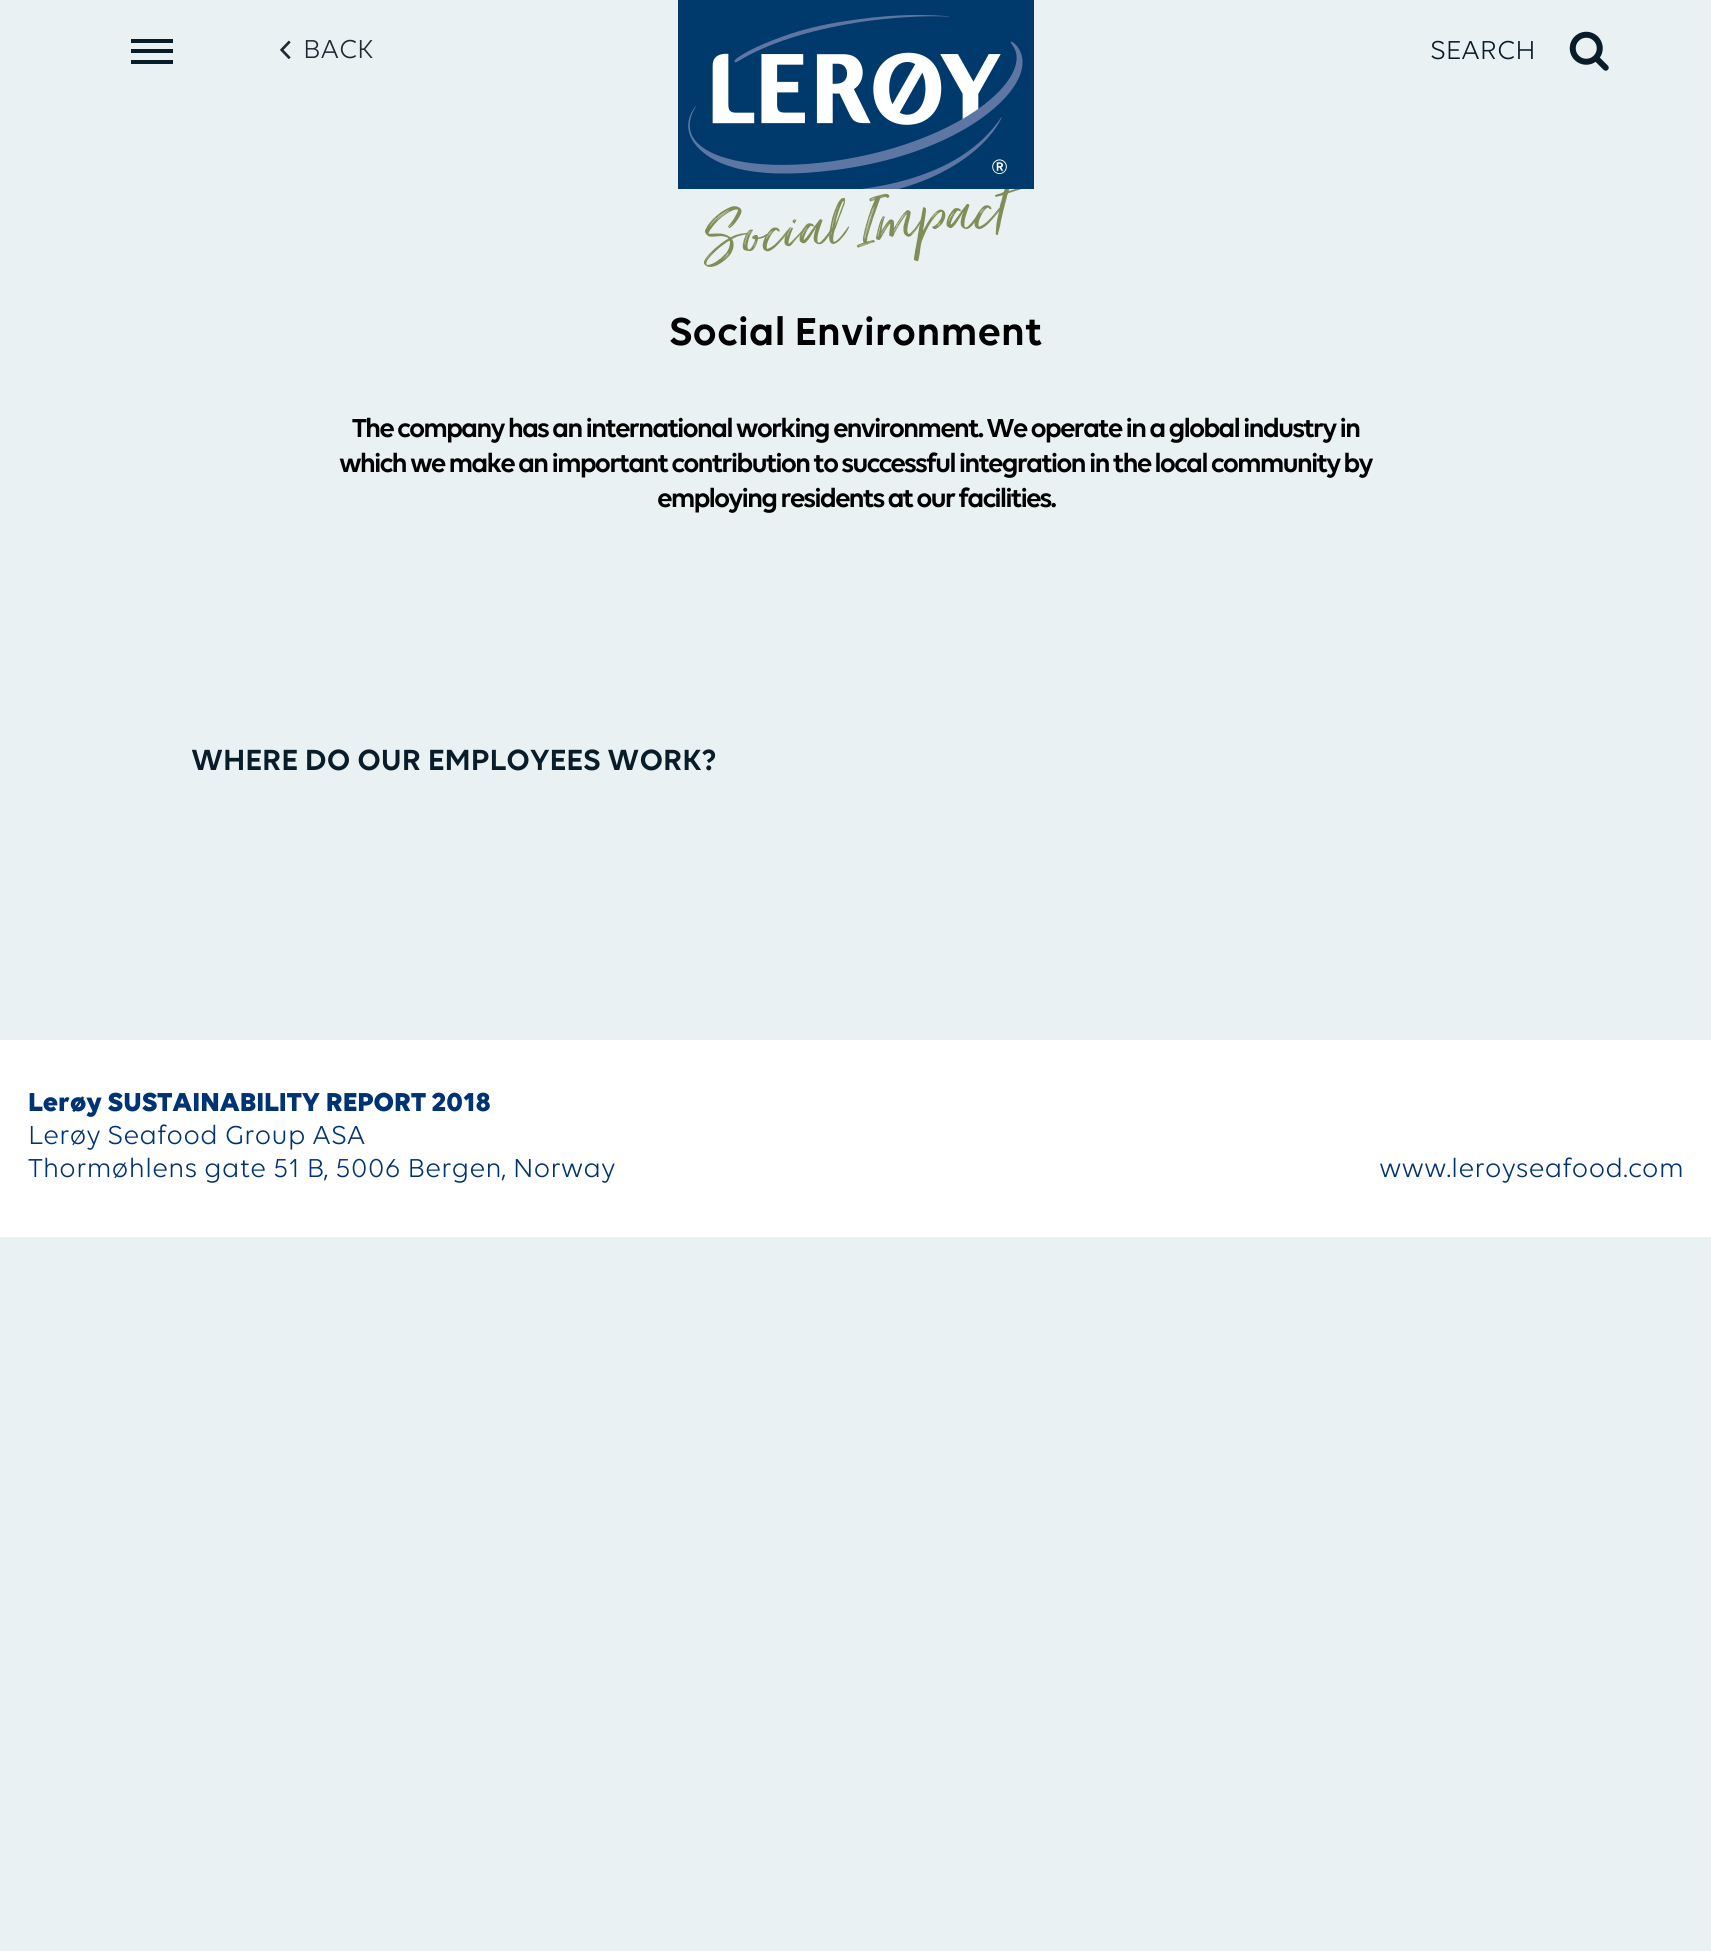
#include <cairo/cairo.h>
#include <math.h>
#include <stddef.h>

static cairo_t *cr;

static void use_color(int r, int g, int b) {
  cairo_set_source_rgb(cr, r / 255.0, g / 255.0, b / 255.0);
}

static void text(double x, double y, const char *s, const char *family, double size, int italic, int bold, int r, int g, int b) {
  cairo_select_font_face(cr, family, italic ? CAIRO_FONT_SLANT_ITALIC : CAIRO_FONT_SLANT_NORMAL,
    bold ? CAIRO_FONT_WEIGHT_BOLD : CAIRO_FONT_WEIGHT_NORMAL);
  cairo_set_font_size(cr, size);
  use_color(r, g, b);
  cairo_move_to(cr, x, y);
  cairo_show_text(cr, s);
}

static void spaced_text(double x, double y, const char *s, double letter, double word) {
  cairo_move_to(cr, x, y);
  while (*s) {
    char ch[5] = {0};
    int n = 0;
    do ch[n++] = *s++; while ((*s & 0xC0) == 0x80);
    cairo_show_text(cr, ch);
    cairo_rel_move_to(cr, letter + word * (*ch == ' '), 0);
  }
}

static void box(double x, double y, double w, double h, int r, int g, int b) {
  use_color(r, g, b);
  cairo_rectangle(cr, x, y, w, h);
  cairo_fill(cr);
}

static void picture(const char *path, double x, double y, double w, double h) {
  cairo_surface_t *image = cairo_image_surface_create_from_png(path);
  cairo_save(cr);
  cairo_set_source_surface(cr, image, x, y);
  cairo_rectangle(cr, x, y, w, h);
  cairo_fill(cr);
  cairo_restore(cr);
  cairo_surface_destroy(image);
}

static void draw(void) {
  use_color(234, 241, 242);
  cairo_paint(cr);
  box(131, 39, 42, 4, 9, 28, 41);
  box(131, 49, 42, 4, 9, 28, 41);
  box(131, 60, 42, 4, 9, 28, 41);
  picture("img_02.png", 280, 40, 11, 19);
  picture("img_03.png", 1569, 31, 40, 40);
  box(0, 1040, 1711, 197, 255, 255, 255);
  text(303, 58, "BACK", "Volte", 28, 0, 0, 33, 40, 49);
  text(1430, 59, "SEARCH", "Volte", 28, 0, 0, 9, 28, 41);
  cairo_select_font_face(cr, "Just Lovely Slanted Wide", CAIRO_FONT_SLANT_NORMAL, CAIRO_FONT_WEIGHT_NORMAL);
  cairo_set_font_size(cr, 77);
  use_color(129, 141, 89);
  cairo_save(cr);
  cairo_translate(cr, 706, 256);
  cairo_rotate(cr, -6 * M_PI / 180);
  spaced_text(0, 0, "Social Impact", 0.75, 0);
  cairo_restore(cr);
  picture("img_01.png", 678, 0, 356, 189);
  text(669, 345, "Social Environment", "Volte SemiBold", 42, 0, 0, 0, 0, 0);
  cairo_set_font_size(cr, 28);
  spaced_text(352, 437, "The company has an international working environment. We operate in a global industry in", -1.93, 0);
  spaced_text(339, 472, "which we make an important contribution to successful integration in the local community by", -1.93, 0);
  spaced_text(657, 507, "employing residents at our facilities.", -1.93, 0);
  text(191, 770, "WHERE DO OUR EMPLOYEES WORK?", "Volte SemiBold", 31.5, 0, 0, 9, 28, 41);
  text(28, 1111, "Lerøy SUSTAINABILITY REPORT 2018", "Volte", 28, 0, 1, 0, 51, 115);
  text(28, 1144, "Lerøy Seafood Group ASA", "Volte", 28, 0, 0, 0, 51, 115);
  text(28, 1177, "Thormøhlens gate 51 B, 5006 Bergen, Norway", "Volte", 28, 0, 0, 0, 51, 115);
  text(1379, 1177, "www.leroyseafood.com", "Volte", 28, 0, 0, 0, 51, 115);
}

int main(void) {
  cairo_surface_t *surface = cairo_image_surface_create(CAIRO_FORMAT_RGB24, 1711, 1951);
  cr = cairo_create(surface);
  cairo_font_options_t *options = cairo_font_options_create();
  cairo_font_options_set_hint_metrics(options, CAIRO_HINT_METRICS_OFF);
  cairo_font_options_set_hint_style(options, CAIRO_HINT_STYLE_NONE);
  cairo_set_font_options(cr, options);
  cairo_set_miter_limit(cr, 4);
  draw();
  cairo_surface_write_to_png(surface, "out.png");
  cairo_font_options_destroy(options);
  cairo_destroy(cr);
  cairo_surface_destroy(surface);
  return 0;
}
